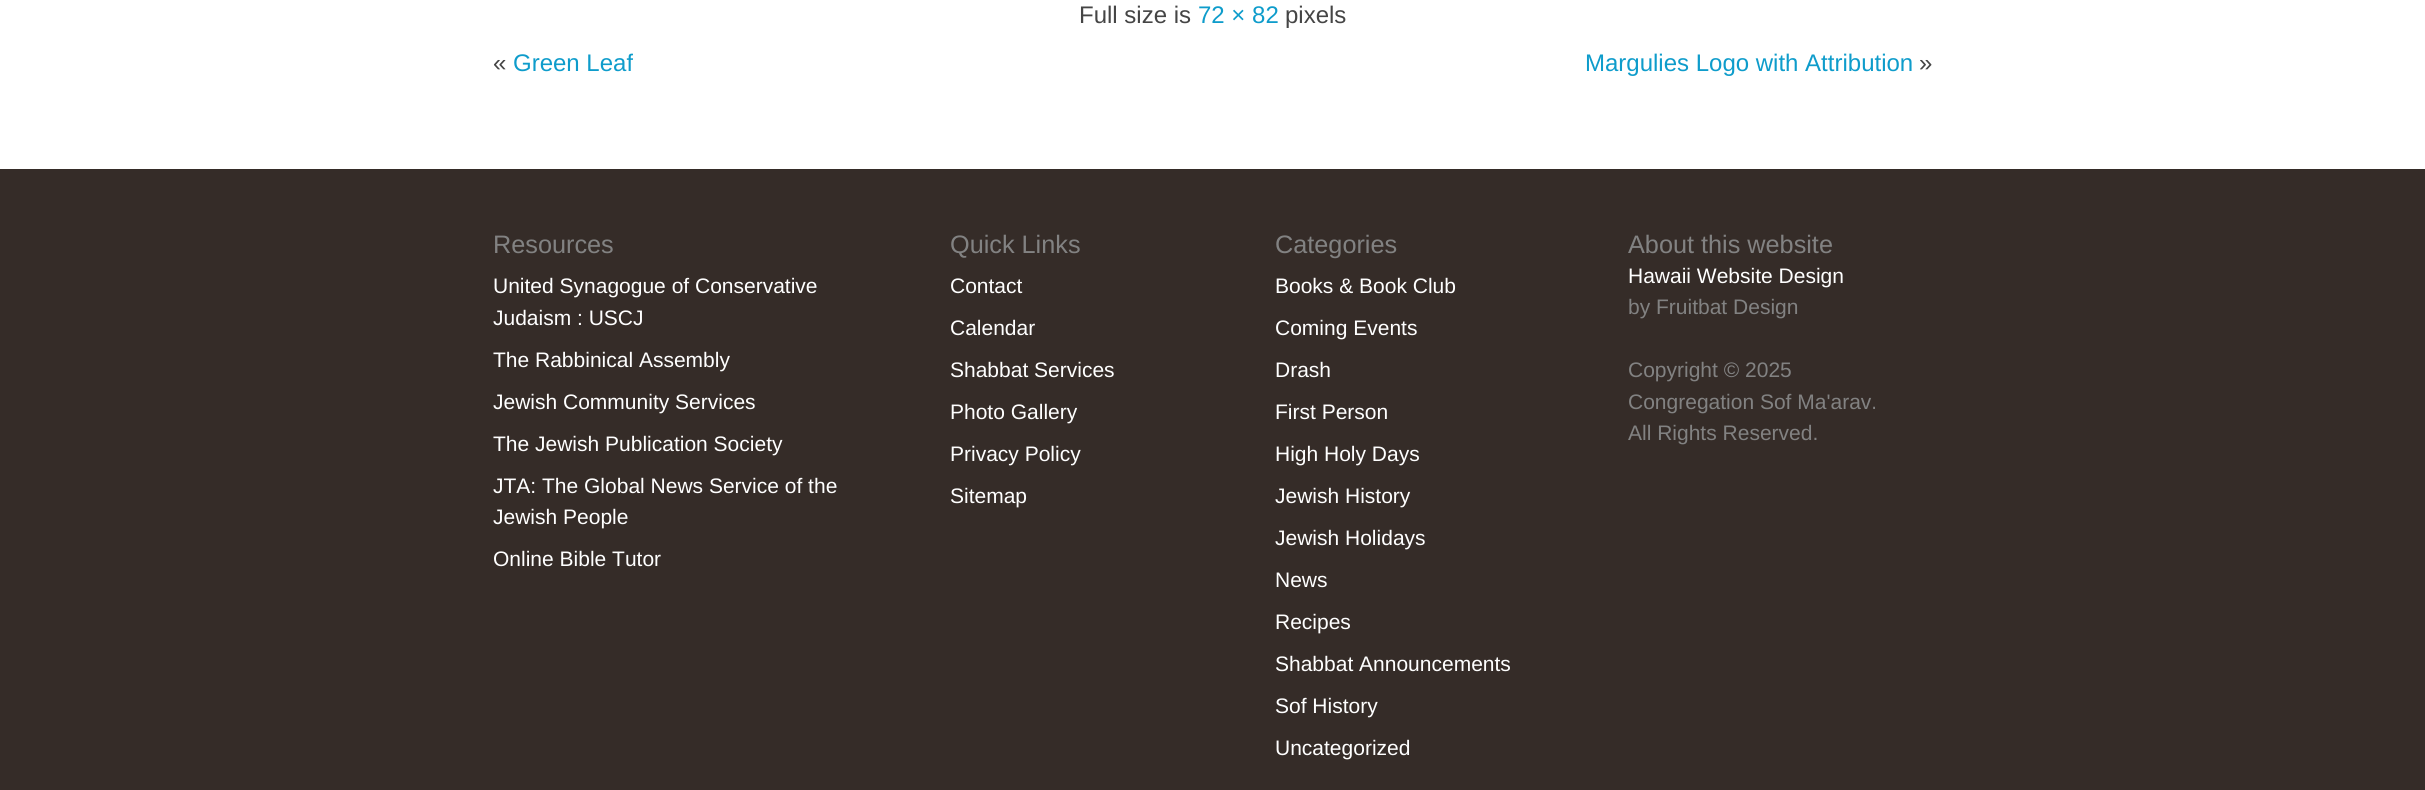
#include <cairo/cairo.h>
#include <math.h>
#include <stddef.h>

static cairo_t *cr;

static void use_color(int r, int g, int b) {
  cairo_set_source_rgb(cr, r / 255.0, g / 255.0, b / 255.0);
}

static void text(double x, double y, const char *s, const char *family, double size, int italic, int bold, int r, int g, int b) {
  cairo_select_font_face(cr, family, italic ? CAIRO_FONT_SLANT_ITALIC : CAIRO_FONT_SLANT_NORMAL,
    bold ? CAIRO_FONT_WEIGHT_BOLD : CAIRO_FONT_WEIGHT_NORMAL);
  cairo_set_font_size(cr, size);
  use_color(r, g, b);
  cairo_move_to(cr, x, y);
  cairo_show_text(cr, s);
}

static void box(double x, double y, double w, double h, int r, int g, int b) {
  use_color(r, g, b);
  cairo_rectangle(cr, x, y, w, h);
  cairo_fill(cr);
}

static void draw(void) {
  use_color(255, 255, 255);
  cairo_paint(cr);
  box(0, 169, 2425, 621, 53, 44, 40);
  text(1079, 23, "Full size is", "Liberation Sans", 24, 0, 0, 69, 69, 69);
  text(1198, 23, "72 × 82", "Liberation Sans", 24, 0, 0, 14, 156, 203);
  text(1285, 23, "pixels", "Liberation Sans", 24, 0, 0, 69, 69, 69);
  text(493, 71, "«", "Liberation Sans", 24, 0, 0, 69, 69, 69);
  text(513, 71, "Green Leaf", "Liberation Sans", 24, 0, 0, 14, 156, 203);
  text(1585, 71, "Margulies Logo with Attribution", "Liberation Sans", 24, 0, 0, 14, 156, 203);
  text(1919, 71, "»", "Liberation Sans", 24, 0, 0, 69, 69, 69);
  text(493, 253, "Resources", "Liberation Sans", 25.25, 0, 0, 130, 130, 130);
  text(493, 293, "United Synagogue of Conservative", "Liberation Sans", 21, 0, 0, 255, 255, 255);
  text(493, 325, "Judaism : USCJ", "Liberation Sans", 21, 0, 0, 255, 255, 255);
  text(493, 367, "The Rabbinical Assembly", "Liberation Sans", 21, 0, 0, 255, 255, 255);
  text(493, 409, "Jewish Community Services", "Liberation Sans", 21, 0, 0, 255, 255, 255);
  text(493, 451, "The Jewish Publication Society", "Liberation Sans", 21, 0, 0, 255, 255, 255);
  text(493, 493, "JTA: The Global News Service of the", "Liberation Sans", 21, 0, 0, 255, 255, 255);
  text(493, 524, "Jewish People", "Liberation Sans", 21, 0, 0, 255, 255, 255);
  text(493, 566, "Online Bible Tutor", "Liberation Sans", 21, 0, 0, 255, 255, 255);
  text(950, 253, "Quick Links", "Liberation Sans", 25.25, 0, 0, 130, 130, 130);
  text(950, 293, "Contact", "Liberation Sans", 21, 0, 0, 255, 255, 255);
  text(950, 335, "Calendar", "Liberation Sans", 21, 0, 0, 255, 255, 255);
  text(950, 377, "Shabbat Services", "Liberation Sans", 21, 0, 0, 255, 255, 255);
  text(950, 419, "Photo Gallery", "Liberation Sans", 21, 0, 0, 255, 255, 255);
  text(950, 461, "Privacy Policy", "Liberation Sans", 21, 0, 0, 255, 255, 255);
  text(950, 503, "Sitemap", "Liberation Sans", 21, 0, 0, 255, 255, 255);
  text(1275, 253, "Categories", "Liberation Sans", 25.25, 0, 0, 130, 130, 130);
  text(1275, 293, "Books & Book Club", "Liberation Sans", 21, 0, 0, 255, 255, 255);
  text(1275, 335, "Coming Events", "Liberation Sans", 21, 0, 0, 255, 255, 255);
  text(1275, 377, "Drash", "Liberation Sans", 21, 0, 0, 255, 255, 255);
  text(1275, 419, "First Person", "Liberation Sans", 21, 0, 0, 255, 255, 255);
  text(1275, 461, "High Holy Days", "Liberation Sans", 21, 0, 0, 255, 255, 255);
  text(1275, 503, "Jewish History", "Liberation Sans", 21, 0, 0, 255, 255, 255);
  text(1275, 545, "Jewish Holidays", "Liberation Sans", 21, 0, 0, 255, 255, 255);
  text(1275, 587, "News", "Liberation Sans", 21, 0, 0, 255, 255, 255);
  text(1275, 629, "Recipes", "Liberation Sans", 21, 0, 0, 255, 255, 255);
  text(1275, 671, "Shabbat Announcements", "Liberation Sans", 21, 0, 0, 255, 255, 255);
  text(1275, 713, "Sof History", "Liberation Sans", 21, 0, 0, 255, 255, 255);
  text(1275, 755, "Uncategorized", "Liberation Sans", 21, 0, 0, 255, 255, 255);
  text(1628, 253, "About this website", "Liberation Sans", 25.25, 0, 0, 130, 130, 130);
  text(1628, 283, "Hawaii Website Design", "Liberation Sans", 21, 0, 0, 255, 255, 255);
  text(1628, 314, "by Fruitbat Design", "Liberation Sans", 21, 0, 0, 130, 130, 130);
  text(1628, 377, "Copyright © 2025", "Liberation Sans", 21, 0, 0, 130, 130, 130);
  text(1628, 409, "Congregation Sof Ma'arav.", "Liberation Sans", 21, 0, 0, 130, 130, 130);
  text(1628, 440, "All Rights Reserved.", "Liberation Sans", 21, 0, 0, 130, 130, 130);
}

int main(void) {
  cairo_surface_t *surface = cairo_image_surface_create(CAIRO_FORMAT_RGB24, 2425, 790);
  cr = cairo_create(surface);
  cairo_font_options_t *options = cairo_font_options_create();
  cairo_font_options_set_hint_metrics(options, CAIRO_HINT_METRICS_OFF);
  cairo_font_options_set_hint_style(options, CAIRO_HINT_STYLE_NONE);
  cairo_set_font_options(cr, options);
  cairo_set_miter_limit(cr, 4);
  draw();
  cairo_surface_write_to_png(surface, "out.png");
  cairo_font_options_destroy(options);
  cairo_destroy(cr);
  cairo_surface_destroy(surface);
  return 0;
}
